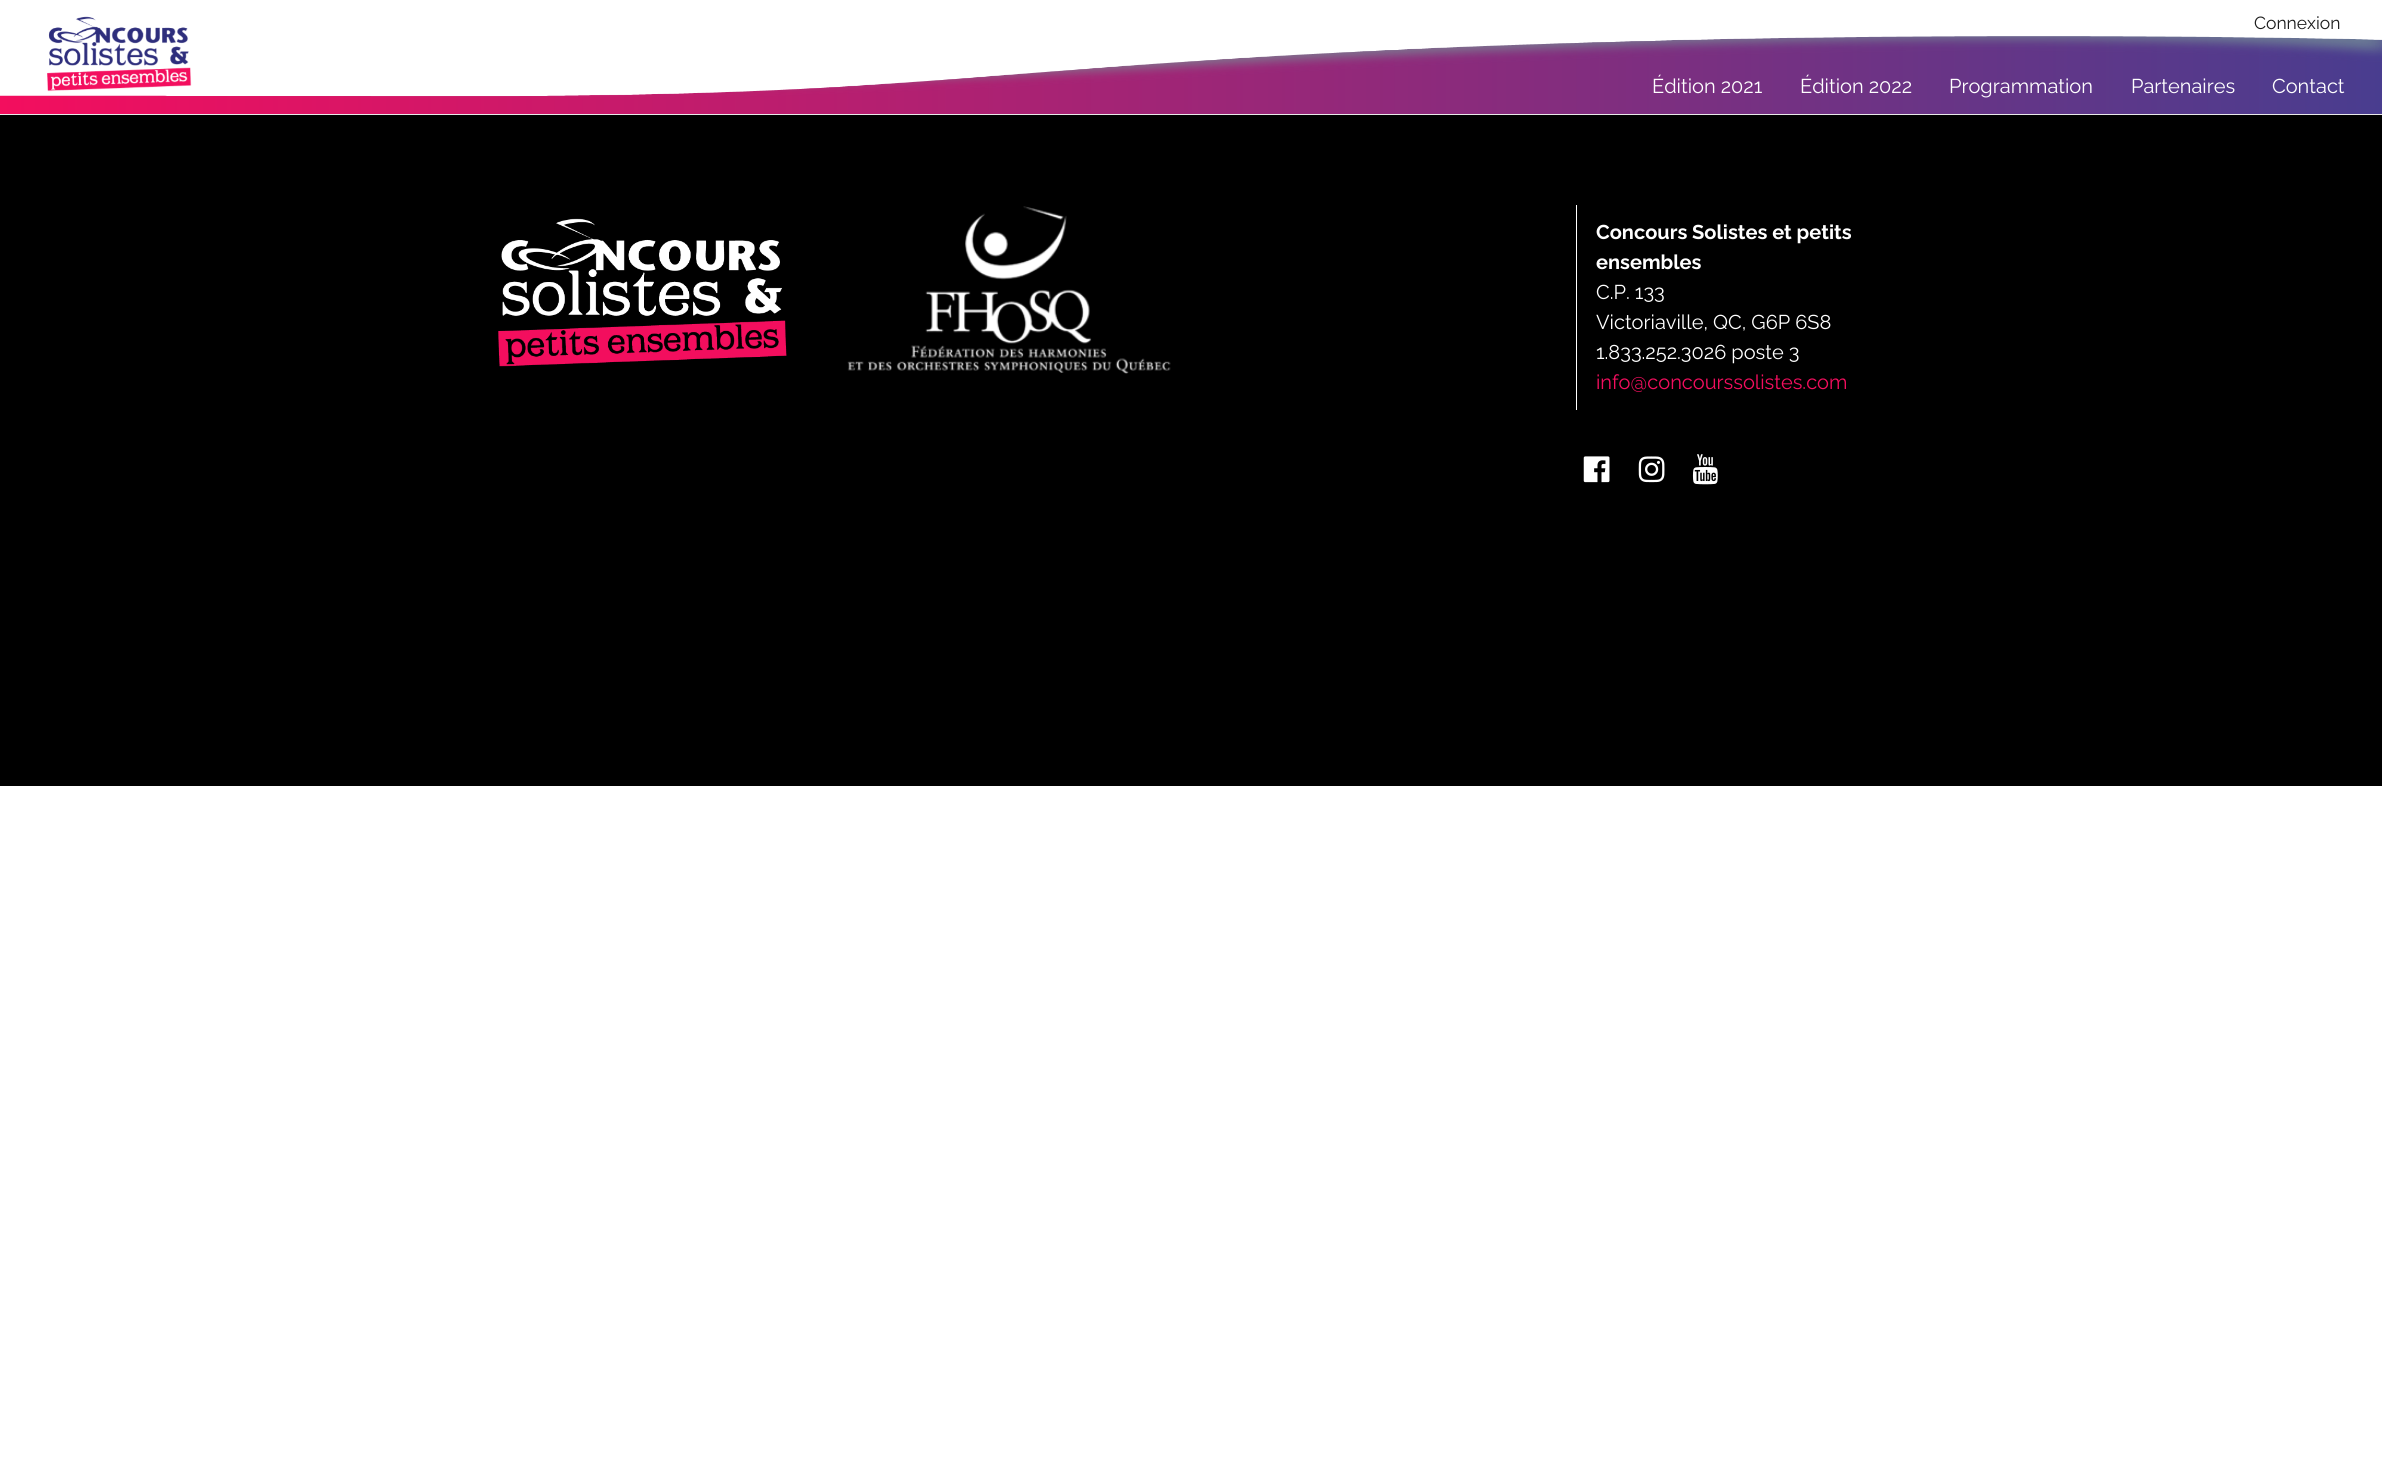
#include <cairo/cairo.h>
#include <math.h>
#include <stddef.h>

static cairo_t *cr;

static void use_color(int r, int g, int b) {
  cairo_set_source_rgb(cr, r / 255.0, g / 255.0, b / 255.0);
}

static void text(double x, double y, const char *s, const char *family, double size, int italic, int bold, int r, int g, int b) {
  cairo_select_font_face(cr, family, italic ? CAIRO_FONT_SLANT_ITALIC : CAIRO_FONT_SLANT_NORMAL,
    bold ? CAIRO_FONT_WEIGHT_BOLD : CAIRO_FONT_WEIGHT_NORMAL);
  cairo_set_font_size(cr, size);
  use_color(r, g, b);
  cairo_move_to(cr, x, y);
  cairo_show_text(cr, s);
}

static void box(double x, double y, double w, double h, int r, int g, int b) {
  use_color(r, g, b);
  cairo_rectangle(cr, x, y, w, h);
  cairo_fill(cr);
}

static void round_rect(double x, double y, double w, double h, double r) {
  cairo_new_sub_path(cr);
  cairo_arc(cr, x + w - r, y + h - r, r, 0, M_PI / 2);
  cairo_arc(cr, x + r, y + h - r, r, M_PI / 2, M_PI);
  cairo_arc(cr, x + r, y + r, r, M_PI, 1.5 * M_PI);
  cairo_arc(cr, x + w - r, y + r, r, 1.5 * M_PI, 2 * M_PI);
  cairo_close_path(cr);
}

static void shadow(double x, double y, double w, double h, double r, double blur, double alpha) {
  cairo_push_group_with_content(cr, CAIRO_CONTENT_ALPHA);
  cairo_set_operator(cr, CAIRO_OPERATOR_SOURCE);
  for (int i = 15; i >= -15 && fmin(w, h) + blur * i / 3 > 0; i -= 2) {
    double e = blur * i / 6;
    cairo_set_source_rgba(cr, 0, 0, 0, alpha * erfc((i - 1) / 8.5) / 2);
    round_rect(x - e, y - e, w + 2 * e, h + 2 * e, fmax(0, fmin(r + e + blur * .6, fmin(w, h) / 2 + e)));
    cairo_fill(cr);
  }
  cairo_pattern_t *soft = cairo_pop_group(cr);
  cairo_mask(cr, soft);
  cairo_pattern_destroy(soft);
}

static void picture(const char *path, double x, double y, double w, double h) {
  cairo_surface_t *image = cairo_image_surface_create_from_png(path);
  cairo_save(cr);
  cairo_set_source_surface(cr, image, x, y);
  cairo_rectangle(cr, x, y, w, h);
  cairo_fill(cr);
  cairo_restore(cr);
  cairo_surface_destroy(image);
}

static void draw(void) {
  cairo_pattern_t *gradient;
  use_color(255, 255, 255);
  cairo_paint(cr);
  box(0, 115, 2382, 671, 0, 0, 0);
  use_color(0, 0, 0);
  shadow(0, 1, 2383, 114, 0, 0.5, 0.1);
  gradient = cairo_pattern_create_linear(0, 57, 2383, 57);
  cairo_pattern_add_color_stop_rgba(gradient, 0, 0.953, 0.055, 0.369, 1);
  cairo_pattern_add_color_stop_rgba(gradient, 1, 0.286, 0.239, 0.561, 1);
  cairo_set_source(cr, gradient);
  cairo_pattern_destroy(gradient);
  cairo_rectangle(cr, 0, 36, 2382, 78);
  cairo_fill(cr);
  picture("img_01.png", 0, 0, 2382, 97);
  picture("img_02.png", 47, 16, 145, 76);
  picture("img_03.png", 498, 218, 289, 149);
  picture("img_04.png", 847, 206, 324, 168);
  box(1576, 205, 1, 205, 255, 255, 255);
  picture("img_05.png", 1583, 456, 27, 27);
  picture("img_06.png", 1638, 456, 27, 27);
  picture("img_07.png", 1692, 454, 26, 31);
  text(2254, 29, "Connexion", "Raleway", 17.5, 0, 0, 28, 28, 28);
  text(1652, 93, "Édition 2021", "Raleway", 20, 0, 0, 255, 255, 255);
  text(1800, 93, "Édition 2022", "Raleway", 20, 0, 0, 255, 255, 255);
  text(1949, 93, "Programmation", "Raleway", 20, 0, 0, 255, 255, 255);
  text(2131, 93, "Partenaires", "Raleway", 20, 0, 0, 255, 255, 255);
  text(2272, 93, "Contact", "Raleway", 20, 0, 0, 255, 255, 255);
  text(1596, 239, "Concours Solistes et petits", "Raleway", 20, 0, 1, 255, 255, 255);
  text(1596, 269, "ensembles", "Raleway", 20, 0, 1, 255, 255, 255);
  text(1596, 299, "C.P. 133", "Raleway", 20, 0, 0, 255, 255, 255);
  text(1596, 329, "Victoriaville, QC, G6P 6S8", "Raleway", 20, 0, 0, 255, 255, 255);
  text(1596, 359, "1.833.252.3026 poste 3", "Raleway", 20, 0, 0, 255, 255, 255);
  text(1596, 389, "info@concourssolistes.com", "Raleway", 20, 0, 0, 243, 14, 94);
}

int main(void) {
  cairo_surface_t *surface = cairo_image_surface_create(CAIRO_FORMAT_RGB24, 2382, 1467);
  cr = cairo_create(surface);
  cairo_font_options_t *options = cairo_font_options_create();
  cairo_font_options_set_hint_metrics(options, CAIRO_HINT_METRICS_OFF);
  cairo_font_options_set_hint_style(options, CAIRO_HINT_STYLE_NONE);
  cairo_set_font_options(cr, options);
  cairo_set_miter_limit(cr, 4);
  draw();
  cairo_surface_write_to_png(surface, "out.png");
  cairo_font_options_destroy(options);
  cairo_destroy(cr);
  cairo_surface_destroy(surface);
  return 0;
}
